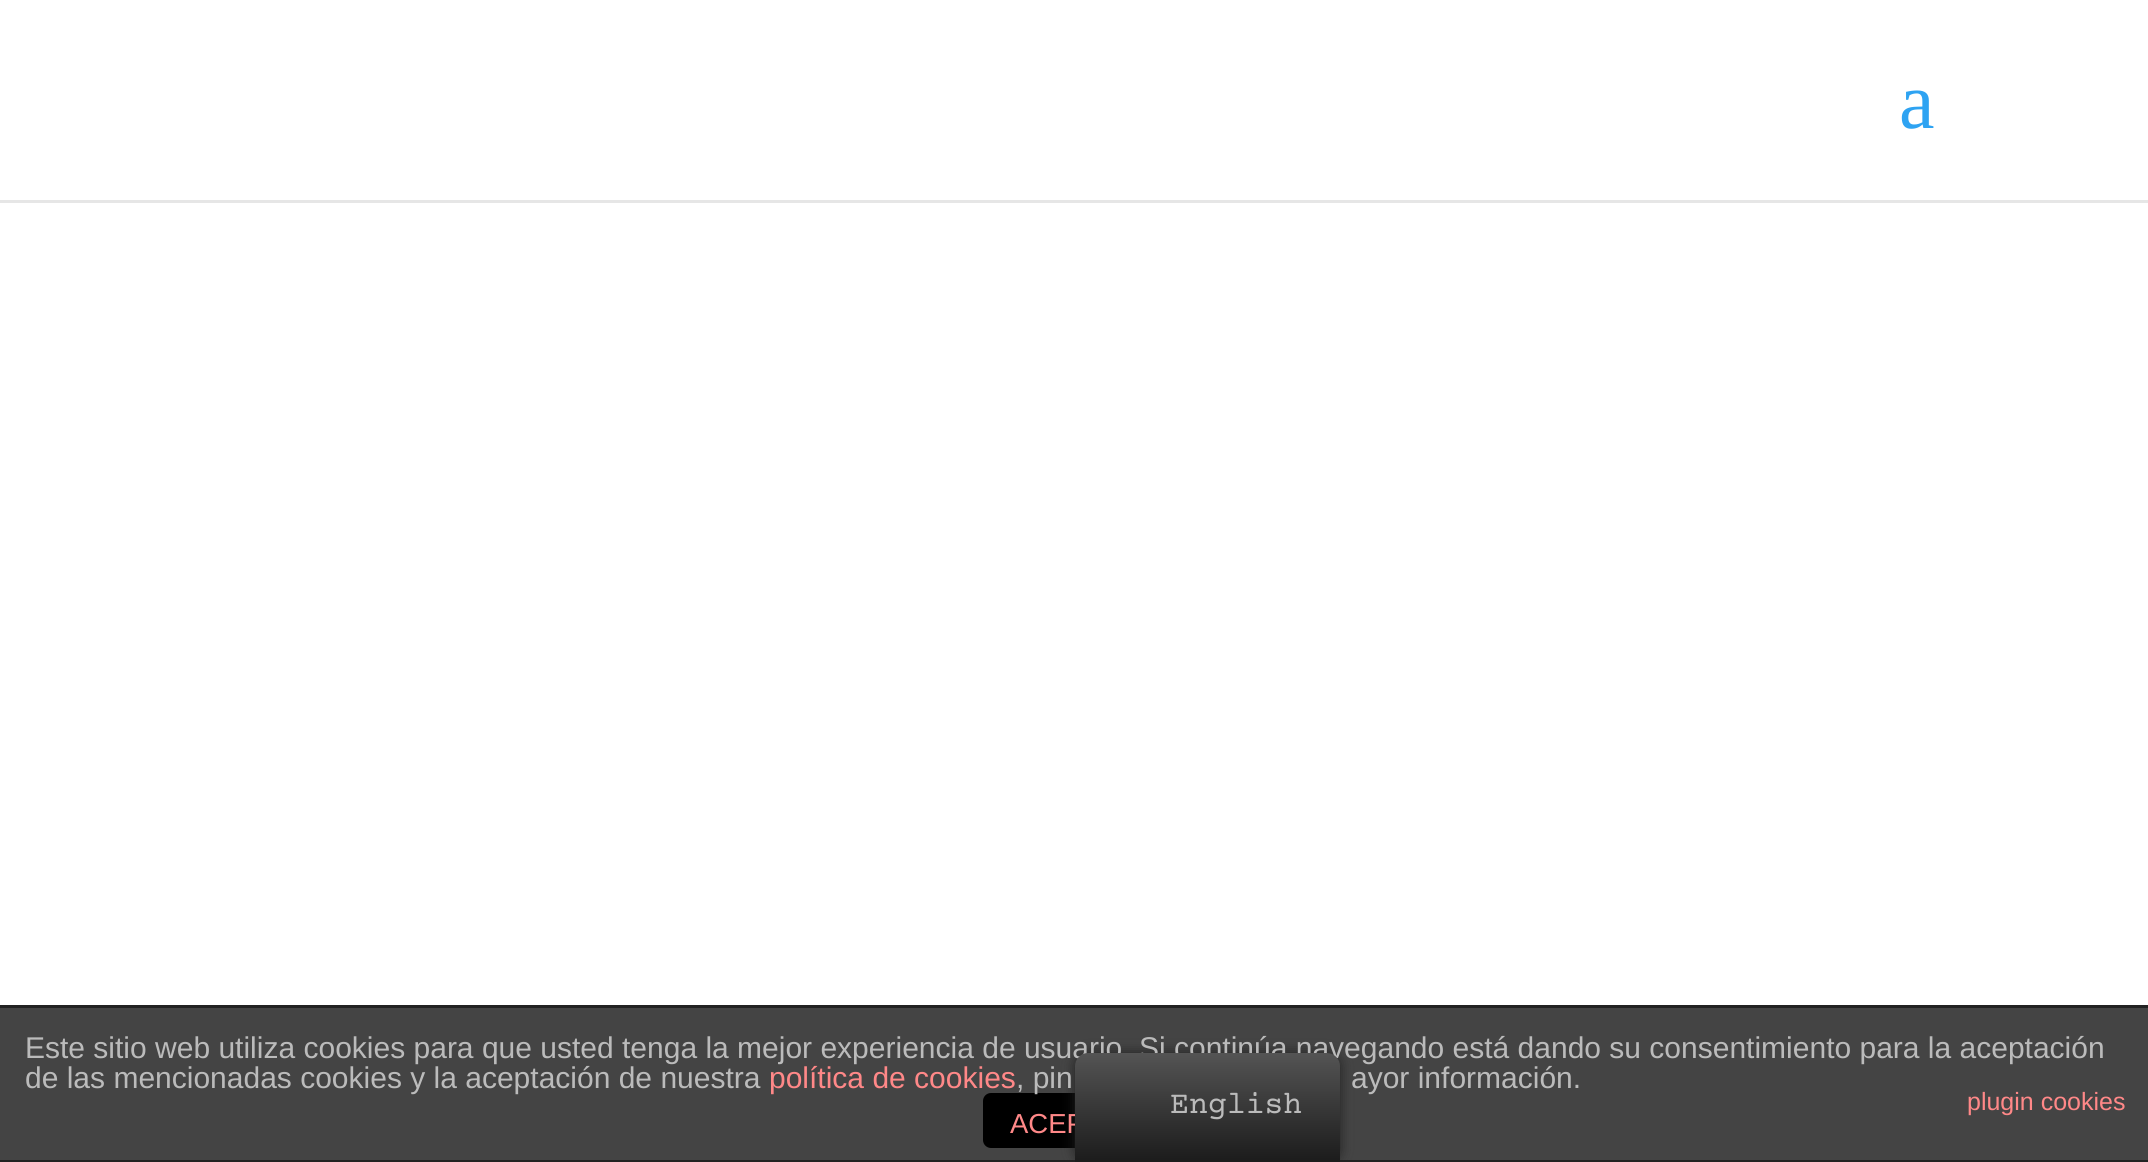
#include <cairo/cairo.h>
#include <math.h>
#include <stddef.h>

static cairo_t *cr;

static void use_color(int r, int g, int b) {
  cairo_set_source_rgb(cr, r / 255.0, g / 255.0, b / 255.0);
}

static void text(double x, double y, const char *s, const char *family, double size, int italic, int bold, int r, int g, int b) {
  cairo_select_font_face(cr, family, italic ? CAIRO_FONT_SLANT_ITALIC : CAIRO_FONT_SLANT_NORMAL,
    bold ? CAIRO_FONT_WEIGHT_BOLD : CAIRO_FONT_WEIGHT_NORMAL);
  cairo_set_font_size(cr, size);
  use_color(r, g, b);
  cairo_move_to(cr, x, y);
  cairo_show_text(cr, s);
}

static void box(double x, double y, double w, double h, int r, int g, int b) {
  use_color(r, g, b);
  cairo_rectangle(cr, x, y, w, h);
  cairo_fill(cr);
}

static void round_rect(double x, double y, double w, double h, double r) {
  cairo_new_sub_path(cr);
  cairo_arc(cr, x + w - r, y + h - r, r, 0, M_PI / 2);
  cairo_arc(cr, x + r, y + h - r, r, M_PI / 2, M_PI);
  cairo_arc(cr, x + r, y + r, r, M_PI, 1.5 * M_PI);
  cairo_arc(cr, x + w - r, y + r, r, 1.5 * M_PI, 2 * M_PI);
  cairo_close_path(cr);
}

static void shadow(double x, double y, double w, double h, double r, double blur, double alpha) {
  cairo_push_group_with_content(cr, CAIRO_CONTENT_ALPHA);
  cairo_set_operator(cr, CAIRO_OPERATOR_SOURCE);
  for (int i = 15; i >= -15 && fmin(w, h) + blur * i / 3 > 0; i -= 2) {
    double e = blur * i / 6;
    cairo_set_source_rgba(cr, 0, 0, 0, alpha * erfc((i - 1) / 8.5) / 2);
    round_rect(x - e, y - e, w + 2 * e, h + 2 * e, fmax(0, fmin(r + e + blur * .6, fmin(w, h) / 2 + e)));
    cairo_fill(cr);
  }
  cairo_pattern_t *soft = cairo_pop_group(cr);
  cairo_mask(cr, soft);
  cairo_pattern_destroy(soft);
}

static void draw(void) {
  cairo_pattern_t *gradient;
  use_color(255, 255, 255);
  cairo_paint(cr);
  box(0, 200, 2148, 3, 230, 230, 230);
  box(0, 1008, 2148, 152, 68, 68, 68);
  box(0, 1005, 2148, 3, 34, 34, 34);
  box(0, 1160, 2148, 2, 34, 34, 34);
  use_color(0, 0, 0);
  round_rect(983, 1093, 187, 55, 8);
  cairo_fill(cr);
  use_color(33, 33, 33);
  shadow(1075, 1053, 265, 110, 13, 6, 1);
  text(1899, 128, "a", "Liberation Serif", 80, 0, 0, 46, 163, 242);
  text(25, 1058, "Este sitio web utiliza cookies para que usted tenga la mejor experiencia de usuario. Si continúa navegando está dando su consentimiento para la aceptación", "Liberation Sans", 30, 0, 0, 187, 187, 187);
  text(25, 1088, "de las mencionadas cookies y la aceptación de nuestra", "Liberation Sans", 30, 0, 0, 187, 187, 187);
  text(769, 1088, "política de cookies", "Liberation Sans", 30, 0, 0, 255, 136, 136);
  text(1016, 1088, ", pin", "Liberation Sans", 30, 0, 0, 187, 187, 187);
  text(1351, 1088, "ayor información.", "Liberation Sans", 30, 0, 0, 187, 187, 187);
  text(1967, 1110, "plugin cookies", "Liberation Sans", 25, 0, 0, 255, 136, 136);
  text(1010, 1133, "ACEP", "Liberation Sans", 27.5, 0, 0, 255, 136, 136);
  gradient = cairo_pattern_create_linear(1208, 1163, 1208, 1053);
  cairo_pattern_add_color_stop_rgba(gradient, 0, 0.106, 0.106, 0.106, 1);
  cairo_pattern_add_color_stop_rgba(gradient, 1, 0.329, 0.329, 0.329, 1);
  cairo_set_source(cr, gradient);
  cairo_pattern_destroy(gradient);
  cairo_new_path(cr);
  cairo_move_to(cr, 1088, 1053);
  cairo_line_to(cr, 1327, 1053);
  cairo_curve_to(cr, 1334, 1053, 1340, 1059, 1340, 1066);
  cairo_line_to(cr, 1340, 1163);
  cairo_line_to(cr, 1075, 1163);
  cairo_line_to(cr, 1075, 1066);
  cairo_curve_to(cr, 1075, 1059, 1081, 1053, 1088, 1053);
  cairo_close_path(cr);
  cairo_fill(cr);
  text(1170, 1113, "English", "Courier Prime", 31.5, 0, 0, 187, 187, 187);
}

int main(void) {
  cairo_surface_t *surface = cairo_image_surface_create(CAIRO_FORMAT_RGB24, 2148, 1162);
  cr = cairo_create(surface);
  cairo_font_options_t *options = cairo_font_options_create();
  cairo_font_options_set_hint_metrics(options, CAIRO_HINT_METRICS_OFF);
  cairo_font_options_set_hint_style(options, CAIRO_HINT_STYLE_NONE);
  cairo_set_font_options(cr, options);
  cairo_set_miter_limit(cr, 4);
  draw();
  cairo_surface_write_to_png(surface, "out.png");
  cairo_font_options_destroy(options);
  cairo_destroy(cr);
  cairo_surface_destroy(surface);
  return 0;
}
